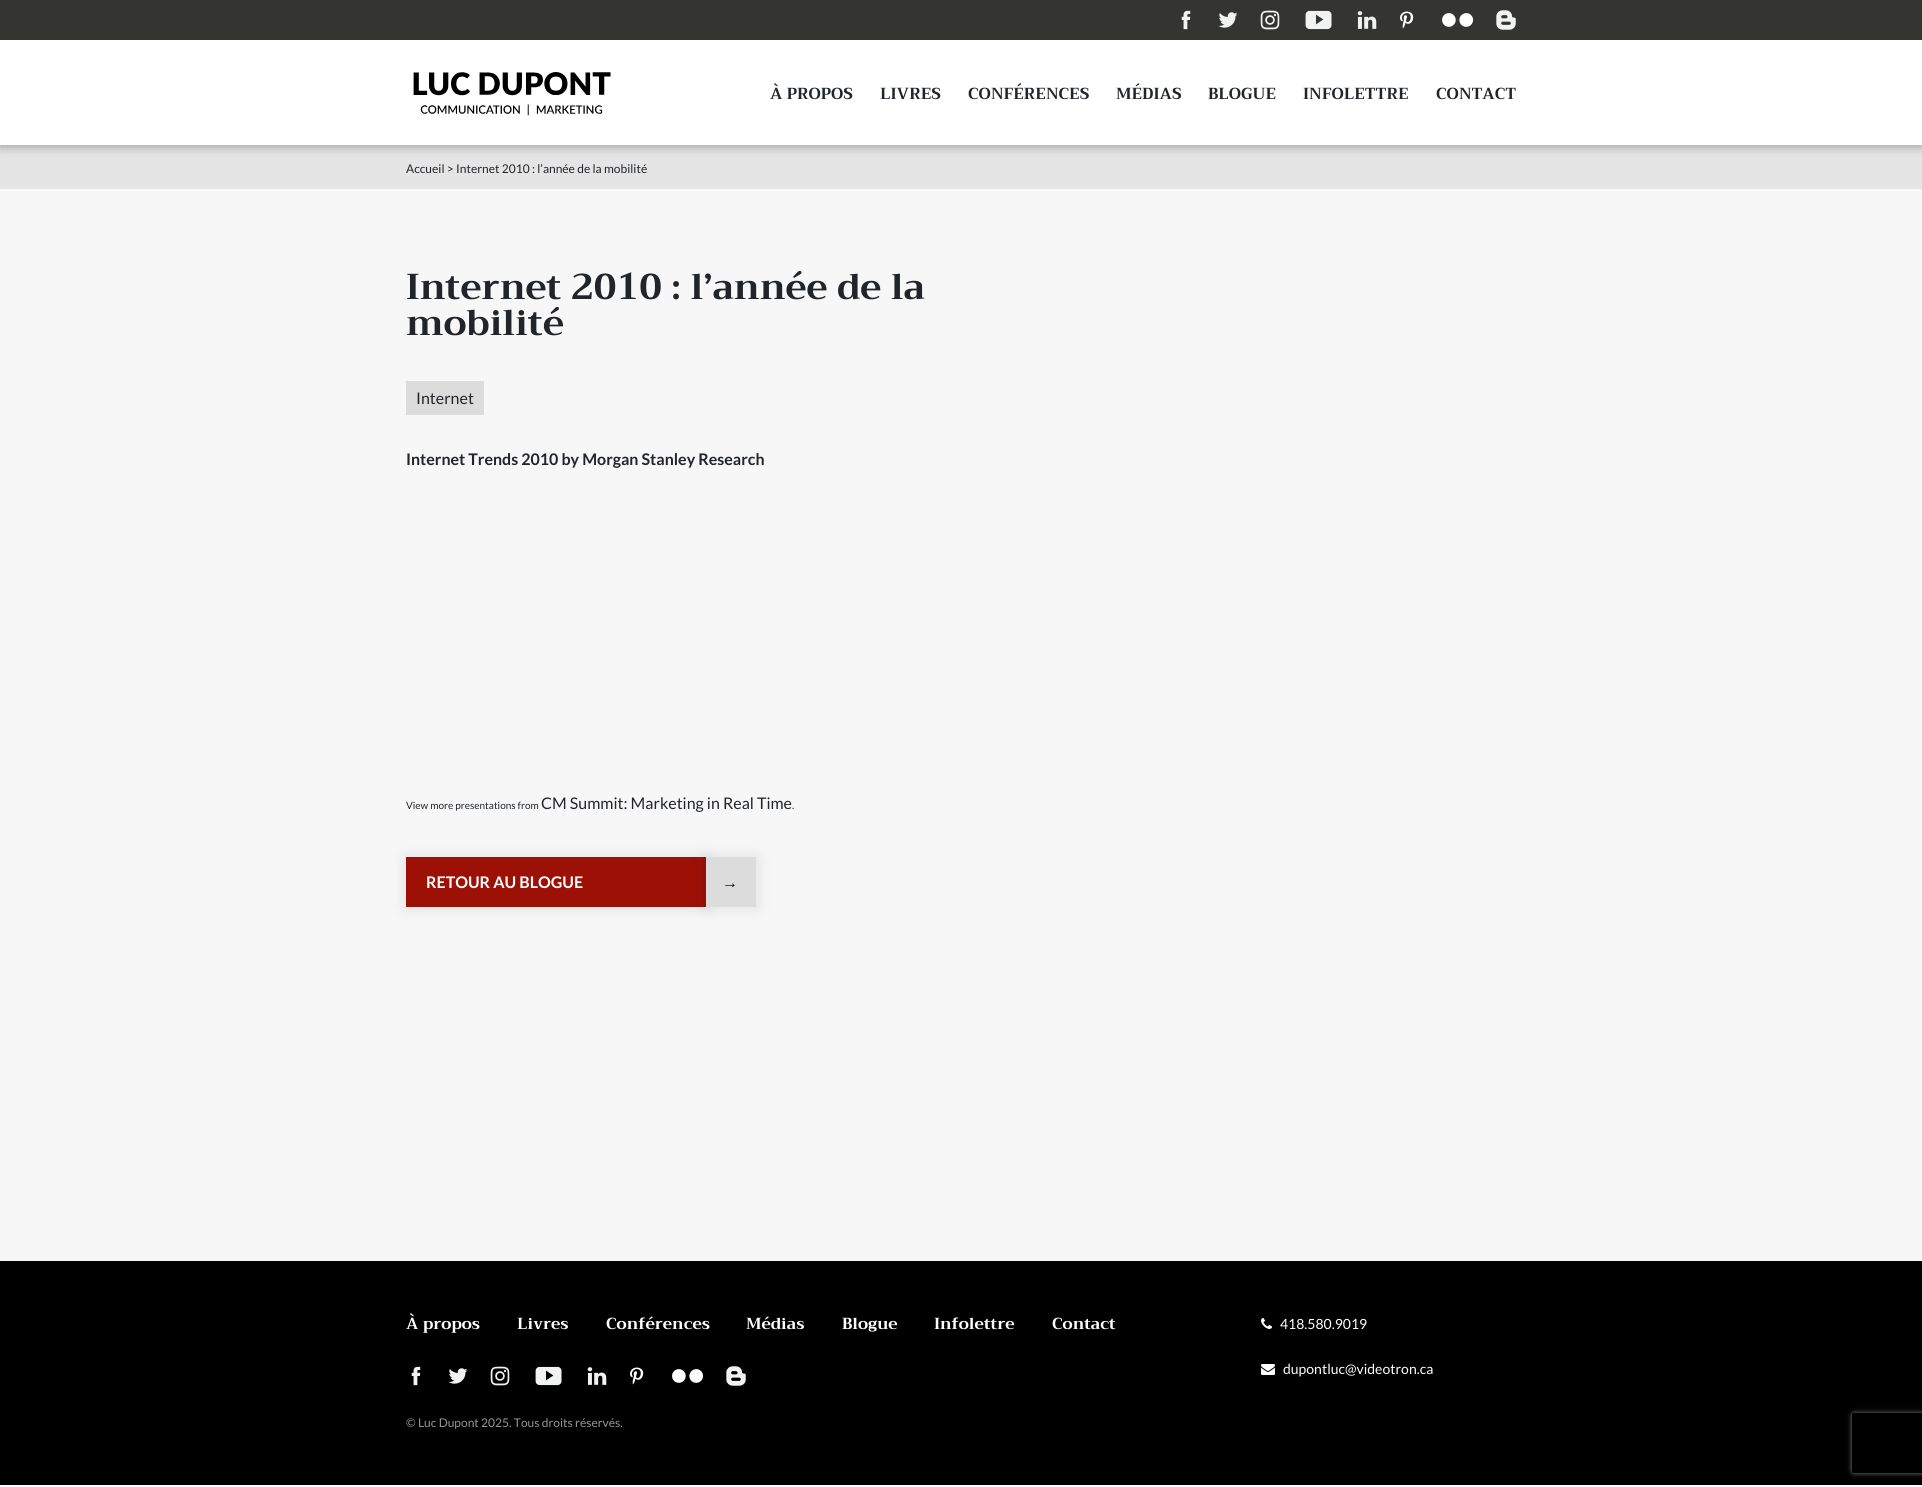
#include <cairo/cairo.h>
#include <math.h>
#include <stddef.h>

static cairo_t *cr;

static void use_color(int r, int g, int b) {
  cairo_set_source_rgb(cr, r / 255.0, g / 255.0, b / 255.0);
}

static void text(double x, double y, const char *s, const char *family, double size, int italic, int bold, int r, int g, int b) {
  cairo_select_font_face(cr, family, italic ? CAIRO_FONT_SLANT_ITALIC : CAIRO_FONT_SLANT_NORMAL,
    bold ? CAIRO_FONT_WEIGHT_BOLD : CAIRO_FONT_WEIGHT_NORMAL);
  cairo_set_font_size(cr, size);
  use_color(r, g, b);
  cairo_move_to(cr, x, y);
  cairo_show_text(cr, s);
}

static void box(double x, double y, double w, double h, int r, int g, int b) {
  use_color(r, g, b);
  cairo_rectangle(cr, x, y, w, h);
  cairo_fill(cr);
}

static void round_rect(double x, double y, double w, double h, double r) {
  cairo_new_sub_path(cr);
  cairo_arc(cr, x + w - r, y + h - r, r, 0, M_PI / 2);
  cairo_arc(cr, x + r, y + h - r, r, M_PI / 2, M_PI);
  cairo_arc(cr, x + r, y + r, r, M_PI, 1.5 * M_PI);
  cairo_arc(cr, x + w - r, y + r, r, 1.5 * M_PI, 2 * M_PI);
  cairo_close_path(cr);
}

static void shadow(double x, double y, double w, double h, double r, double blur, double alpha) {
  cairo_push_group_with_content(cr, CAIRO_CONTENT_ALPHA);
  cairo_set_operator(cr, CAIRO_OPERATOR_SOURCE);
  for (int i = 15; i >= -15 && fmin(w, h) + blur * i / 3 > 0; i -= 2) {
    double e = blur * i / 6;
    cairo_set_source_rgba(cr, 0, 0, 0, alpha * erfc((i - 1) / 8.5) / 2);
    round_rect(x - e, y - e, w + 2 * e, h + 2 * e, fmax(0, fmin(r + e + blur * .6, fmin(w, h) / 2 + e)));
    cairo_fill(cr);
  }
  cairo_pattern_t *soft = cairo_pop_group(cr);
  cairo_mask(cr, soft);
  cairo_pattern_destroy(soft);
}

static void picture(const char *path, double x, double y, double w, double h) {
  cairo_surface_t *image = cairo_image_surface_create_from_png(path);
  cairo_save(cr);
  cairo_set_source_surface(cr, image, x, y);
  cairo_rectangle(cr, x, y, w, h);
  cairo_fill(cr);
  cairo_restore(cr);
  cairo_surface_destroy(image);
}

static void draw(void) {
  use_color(255, 255, 255);
  cairo_paint(cr);
  box(0, 145, 1922, 44, 229, 229, 229);
  use_color(0, 0, 0);
  shadow(0, 2, 1922, 145, 0, 5, 0.3);
  box(0, 40, 1922, 105, 255, 255, 255);
  box(0, 0, 1922, 40, 52, 52, 51);
  picture("img_01.png", 1181, 10, 10, 20);
  picture("img_02.png", 1218, 12, 20, 16);
  picture("img_03.png", 1260, 10, 20, 20);
  picture("img_04.png", 1305, 10, 27, 20);
  picture("img_05.png", 1357, 11, 20, 18);
  picture("img_06.png", 1400, 11, 14, 18);
  picture("img_07.png", 1442, 13, 32, 14);
  picture("img_08.png", 1496, 10, 20, 20);
  picture("img_09.png", 413, 72, 198, 44);
  box(0, 189, 1922, 1072, 247, 247, 247);
  box(406, 381, 78, 34, 220, 220, 220);
  use_color(0, 0, 0);
  shadow(406, 857, 301, 51, 0, 7.5, 0.1);
  box(406, 857, 300, 50, 156, 16, 6);
  use_color(0, 0, 0);
  shadow(706, 857, 51, 51, 0, 7.5, 0.1);
  box(706, 857, 50, 50, 220, 220, 220);
  box(0, 1261, 1922, 224, 0, 0, 0);
  picture("img_10.png", 411, 1366, 10, 20);
  picture("img_11.png", 448, 1368, 20, 16);
  picture("img_12.png", 490, 1366, 20, 20);
  picture("img_13.png", 535, 1366, 27, 20);
  picture("img_14.png", 587, 1367, 20, 18);
  picture("img_15.png", 630, 1367, 14, 18);
  picture("img_16.png", 672, 1369, 32, 14);
  picture("img_17.png", 726, 1366, 20, 20);
  picture("img_18.png", 1261, 1318, 11, 11);
  picture("img_19.png", 1261, 1364, 14, 11);
  cairo_save(cr);
  cairo_set_fill_rule(cr, CAIRO_FILL_RULE_EVEN_ODD);
  cairo_new_path(cr);
  cairo_move_to(cr, 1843, 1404);
  cairo_line_to(cr, 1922, 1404);
  cairo_line_to(cr, 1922, 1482);
  cairo_line_to(cr, 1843, 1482);
  cairo_close_path(cr);
  cairo_move_to(cr, 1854, 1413);
  cairo_line_to(cr, 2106, 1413);
  cairo_curve_to(cr, 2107, 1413, 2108, 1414, 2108, 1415);
  cairo_line_to(cr, 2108, 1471);
  cairo_curve_to(cr, 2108, 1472, 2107, 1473, 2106, 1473);
  cairo_line_to(cr, 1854, 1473);
  cairo_curve_to(cr, 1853, 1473, 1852, 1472, 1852, 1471);
  cairo_line_to(cr, 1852, 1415);
  cairo_curve_to(cr, 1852, 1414, 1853, 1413, 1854, 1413);
  cairo_close_path(cr);
  cairo_clip(cr);
  use_color(128, 128, 128);
  shadow(1852, 1413, 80, 60, 2, 2.5, 1);
  cairo_restore(cr);
  text(770, 99, "À PROPOS", "Trirong", 16, 0, 1, 33, 37, 41);
  text(880, 99, "LIVRES", "Trirong", 16, 0, 1, 33, 37, 41);
  text(968, 99, "CONFÉRENCES", "Trirong", 16, 0, 1, 33, 37, 41);
  text(1116, 99, "MÉDIAS", "Trirong", 16, 0, 1, 33, 37, 41);
  text(1208, 99, "BLOGUE", "Trirong", 16, 0, 1, 33, 37, 41);
  text(1303, 99, "INFOLETTRE", "Trirong", 16, 0, 1, 33, 37, 41);
  text(1436, 99, "CONTACT", "Trirong", 16, 0, 1, 33, 37, 41);
  text(406, 173, "Accueil > Internet 2010 : l’année de la mobilité", "Lato", 12, 0, 0, 33, 37, 41);
  text(406, 299, "Internet 2010 : l’année de la", "Trirong", 36, 0, 1, 33, 37, 41);
  text(406, 335, "mobilité", "Trirong", 36, 0, 1, 33, 37, 41);
  text(416, 404, "Internet", "Lato", 16, 0, 0, 33, 37, 41);
  text(406, 465, "Internet Trends 2010 by Morgan Stanley Research", "Lato", 16, 0, 1, 33, 37, 41);
  text(406, 809, "View more presentations from", "Lato", 10, 0, 0, 33, 37, 41);
  text(541, 809, "CM Summit: Marketing in Real Time", "Lato", 16, 0, 0, 33, 37, 41);
  text(792, 809, ".", "Lato", 10, 0, 0, 33, 37, 41);
  text(426, 888, "RETOUR AU BLOGUE", "Lato", 16, 0, 1, 255, 255, 255);
  text(722, 888, "→", "Liberation Sans", 16, 0, 1, 0, 0, 0);
  text(406, 1329, "À propos", "Trirong", 16, 0, 1, 255, 255, 255);
  text(517, 1329, "Livres", "Trirong", 16, 0, 1, 255, 255, 255);
  text(606, 1329, "Conférences", "Trirong", 16, 0, 1, 255, 255, 255);
  text(746, 1329, "Médias", "Trirong", 16, 0, 1, 255, 255, 255);
  text(842, 1329, "Blogue", "Trirong", 16, 0, 1, 255, 255, 255);
  text(934, 1329, "Infolettre", "Trirong", 16, 0, 1, 255, 255, 255);
  text(1052, 1329, "Contact", "Trirong", 16, 0, 1, 255, 255, 255);
  text(1280, 1329, "418.580.9019", "Lato", 14, 0, 0, 255, 255, 255);
  text(1283, 1374, "dupontluc@videotron.ca", "Lato", 14, 0, 0, 255, 255, 255);
  text(406, 1427, "© Luc Dupont 2025. Tous droits réservés.", "Lato", 12, 0, 0, 149, 149, 149);
}

int main(void) {
  cairo_surface_t *surface = cairo_image_surface_create(CAIRO_FORMAT_RGB24, 1922, 1487);
  cr = cairo_create(surface);
  cairo_font_options_t *options = cairo_font_options_create();
  cairo_font_options_set_hint_metrics(options, CAIRO_HINT_METRICS_OFF);
  cairo_font_options_set_hint_style(options, CAIRO_HINT_STYLE_NONE);
  cairo_set_font_options(cr, options);
  cairo_set_miter_limit(cr, 4);
  draw();
  cairo_surface_write_to_png(surface, "out.png");
  cairo_font_options_destroy(options);
  cairo_destroy(cr);
  cairo_surface_destroy(surface);
  return 0;
}
